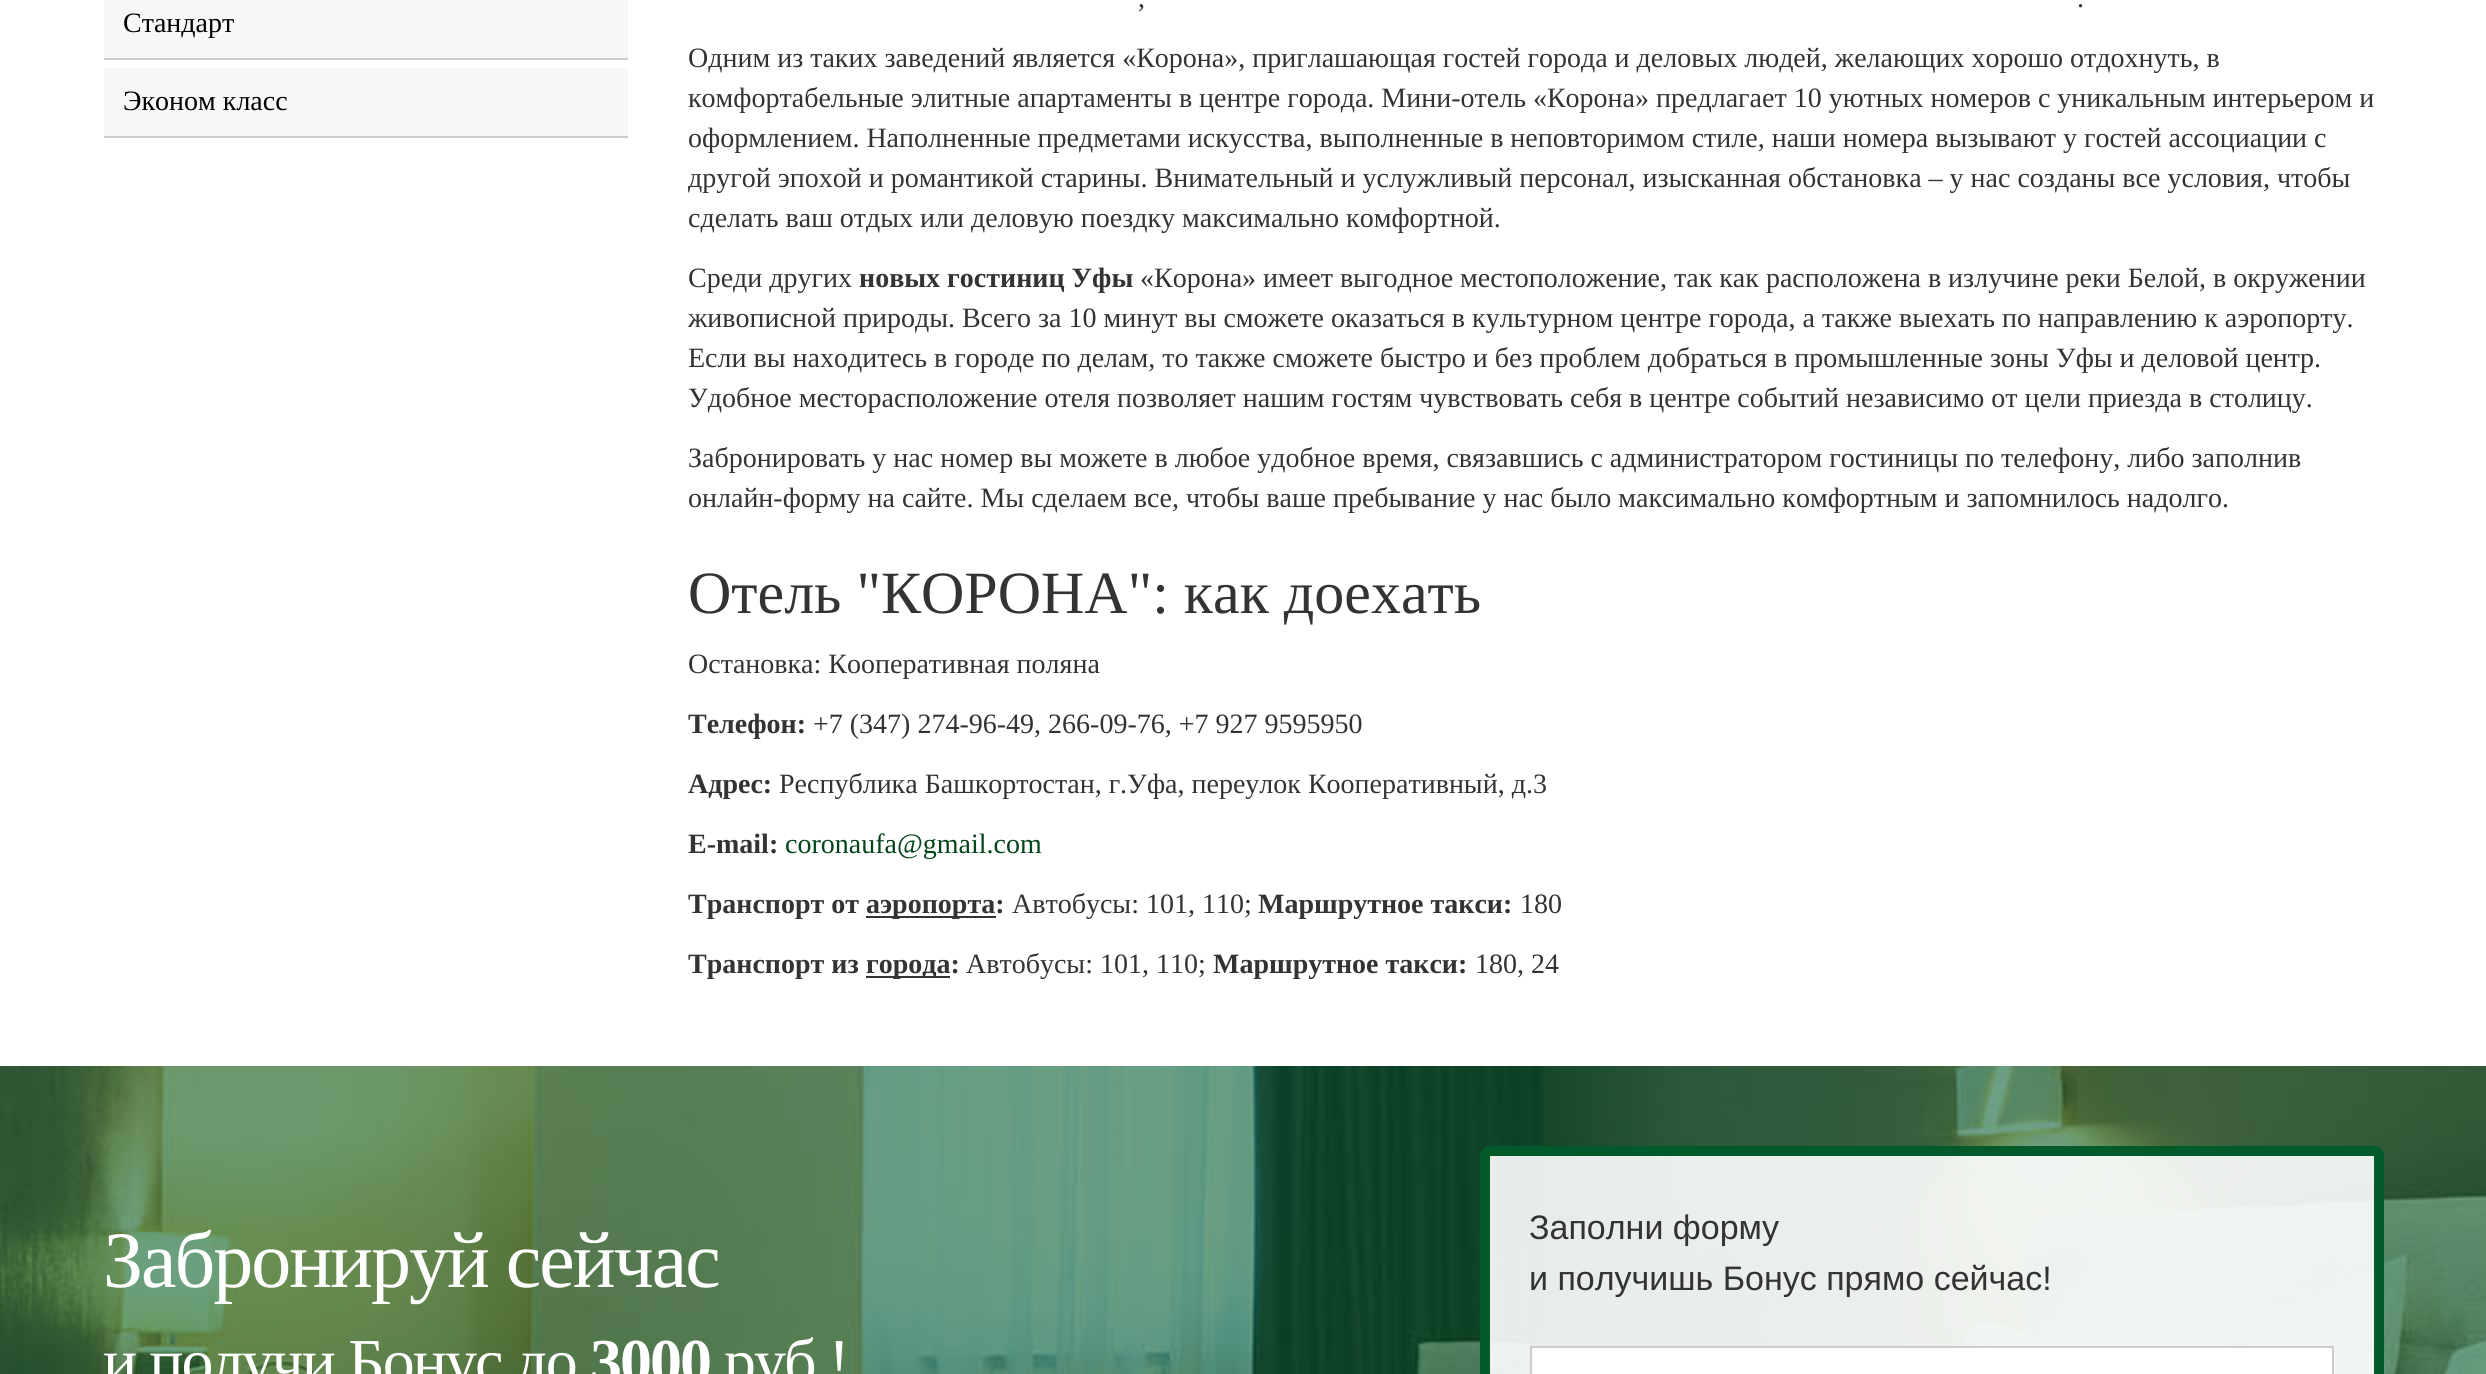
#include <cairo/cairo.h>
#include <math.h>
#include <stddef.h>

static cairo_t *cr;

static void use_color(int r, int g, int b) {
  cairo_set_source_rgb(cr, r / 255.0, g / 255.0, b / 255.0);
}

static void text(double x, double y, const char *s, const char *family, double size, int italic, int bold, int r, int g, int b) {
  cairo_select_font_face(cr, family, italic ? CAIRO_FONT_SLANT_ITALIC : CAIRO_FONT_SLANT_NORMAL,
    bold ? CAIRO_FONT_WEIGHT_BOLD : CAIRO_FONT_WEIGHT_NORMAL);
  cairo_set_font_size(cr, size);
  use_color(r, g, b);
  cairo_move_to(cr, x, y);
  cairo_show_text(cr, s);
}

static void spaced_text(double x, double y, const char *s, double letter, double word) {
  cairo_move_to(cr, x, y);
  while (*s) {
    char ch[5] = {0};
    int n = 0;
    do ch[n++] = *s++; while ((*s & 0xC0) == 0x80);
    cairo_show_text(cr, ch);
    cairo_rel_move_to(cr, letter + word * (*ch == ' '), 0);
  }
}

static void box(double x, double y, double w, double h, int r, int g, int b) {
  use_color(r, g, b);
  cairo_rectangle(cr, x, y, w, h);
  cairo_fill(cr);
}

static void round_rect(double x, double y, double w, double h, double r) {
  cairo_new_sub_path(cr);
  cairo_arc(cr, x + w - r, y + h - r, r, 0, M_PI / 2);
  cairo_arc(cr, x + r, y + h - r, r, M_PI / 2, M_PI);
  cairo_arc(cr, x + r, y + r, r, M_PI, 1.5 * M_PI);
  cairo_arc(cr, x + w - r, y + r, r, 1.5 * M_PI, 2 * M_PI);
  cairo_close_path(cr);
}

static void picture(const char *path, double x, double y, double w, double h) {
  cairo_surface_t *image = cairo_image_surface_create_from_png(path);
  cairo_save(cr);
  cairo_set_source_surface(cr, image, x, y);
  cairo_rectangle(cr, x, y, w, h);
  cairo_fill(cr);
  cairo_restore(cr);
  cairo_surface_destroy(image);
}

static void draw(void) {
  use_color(255, 255, 255);
  cairo_paint(cr);
  box(104, 0, 524, 58, 247, 247, 247);
  box(104, 58, 524, 2, 204, 204, 204);
  box(104, 68, 524, 68, 247, 247, 247);
  box(104, 136, 524, 2, 204, 204, 204);
  box(866, 916, 130, 2, 51, 51, 51);
  box(866, 976, 84, 2, 51, 51, 51);
  picture("img_01.png", 0, 1066, 2486, 308);
  cairo_set_source_rgba(cr, 1, 1, 1, 0.9);
  round_rect(1485, 1151, 894, 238, 5);
  cairo_fill_preserve(cr);
  use_color(1, 90, 42);
  cairo_set_line_width(cr, 10);
  cairo_stroke(cr);
  use_color(255, 255, 255);
  cairo_rectangle(cr, 1531, 1347, 802, 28);
  cairo_fill_preserve(cr);
  use_color(204, 204, 204);
  cairo_set_line_width(cr, 2);
  cairo_stroke(cr);
  text(123, 32, "Стандарт", "Liberation Serif", 28, 0, 0, 0, 0, 0);
  text(123, 110, "Эконом класс", "Liberation Serif", 28, 0, 0, 0, 0, 0);
  text(1138, 7, ",", "Liberation Serif", 28, 0, 0, 51, 51, 51);
  text(2077, 7, ".", "Liberation Serif", 28, 0, 0, 51, 51, 51);
  text(688, 67, "Одним из таких заведений является «Корона», приглашающая гостей города и деловых людей, желающих хорошо отдохнуть, в", "Liberation Serif", 28, 0, 0, 51, 51, 51);
  text(688, 107, "комфортабельные элитные апартаменты в центре города. Мини-отель «Корона» предлагает 10 уютных номеров с уникальным интерьером и", "Liberation Serif", 28, 0, 0, 51, 51, 51);
  text(688, 147, "оформлением. Наполненные предметами искусства, выполненные в неповторимом стиле, наши номера вызывают у гостей ассоциации с", "Liberation Serif", 28, 0, 0, 51, 51, 51);
  text(688, 187, "другой эпохой и романтикой старины. Внимательный и услужливый персонал, изысканная обстановка – у нас созданы все условия, чтобы", "Liberation Serif", 28, 0, 0, 51, 51, 51);
  text(688, 227, "сделать ваш отдых или деловую поездку максимально комфортной.", "Liberation Serif", 28, 0, 0, 51, 51, 51);
  text(688, 287, "Среди других", "Liberation Serif", 28, 0, 0, 51, 51, 51);
  text(859, 287, "новых гостиниц Уфы", "Liberation Serif", 28, 0, 1, 51, 51, 51);
  text(1140, 287, "«Корона» имеет выгодное местоположение, так как расположена в излучине реки Белой, в окружении", "Liberation Serif", 28, 0, 0, 51, 51, 51);
  text(688, 327, "живописной природы. Всего за 10 минут вы сможете оказаться в культурном центре города, а также выехать по направлению к аэропорту.", "Liberation Serif", 28, 0, 0, 51, 51, 51);
  text(688, 367, "Если вы находитесь в городе по делам, то также сможете быстро и без проблем добраться в промышленные зоны Уфы и деловой центр.", "Liberation Serif", 28, 0, 0, 51, 51, 51);
  text(688, 407, "Удобное месторасположение отеля позволяет нашим гостям чувствовать себя в центре событий независимо от цели приезда в столицу.", "Liberation Serif", 28, 0, 0, 51, 51, 51);
  text(688, 467, "Забронировать у нас номер вы можете в любое удобное время, связавшись с администратором гостиницы по телефону, либо заполнив", "Liberation Serif", 28, 0, 0, 51, 51, 51);
  text(688, 507, "онлайн-форму на сайте. Мы сделаем все, чтобы ваше пребывание у нас было максимально комфортным и запомнилось надолго.", "Liberation Serif", 28, 0, 0, 51, 51, 51);
  text(688, 613, "Отель \"КОРОНА\": как доехать", "Liberation Serif", 60, 0, 0, 51, 51, 51);
  text(688, 673, "Остановка: Кооперативная поляна", "Liberation Serif", 28, 0, 0, 51, 51, 51);
  text(688, 733, "Телефон:", "Liberation Serif", 28, 0, 1, 51, 51, 51);
  text(813, 733, "+7 (347) 274-96-49, 266-09-76, +7 927 9595950", "Liberation Serif", 28, 0, 0, 51, 51, 51);
  text(688, 793, "Адрес:", "Liberation Serif", 28, 0, 1, 51, 51, 51);
  text(779, 793, "Республика Башкортостан, г.Уфа, переулок Кооперативный, д.3", "Liberation Serif", 28, 0, 0, 51, 51, 51);
  text(688, 853, "E-mail:", "Liberation Serif", 28, 0, 1, 51, 51, 51);
  text(785, 853, "coronaufa@gmail.com", "Liberation Serif", 28, 0, 0, 2, 69, 26);
  text(688, 913, "Транспорт от", "Liberation Serif", 28, 0, 1, 51, 51, 51);
  text(866, 913, "аэропорта:", "Liberation Serif", 28, 0, 1, 51, 51, 51);
  text(1012, 913, "Автобусы: 101, 110;", "Liberation Serif", 28, 0, 0, 51, 51, 51);
  text(1258, 913, "Маршрутное такси:", "Liberation Serif", 28, 0, 1, 51, 51, 51);
  text(1520, 913, "180", "Liberation Serif", 28, 0, 0, 51, 51, 51);
  text(688, 973, "Транспорт из", "Liberation Serif", 28, 0, 1, 51, 51, 51);
  text(866, 973, "города:", "Liberation Serif", 28, 0, 1, 51, 51, 51);
  text(966, 973, "Автобусы: 101, 110;", "Liberation Serif", 28, 0, 0, 51, 51, 51);
  text(1213, 973, "Маршрутное такси:", "Liberation Serif", 28, 0, 1, 51, 51, 51);
  text(1475, 973, "180, 24", "Liberation Serif", 28, 0, 0, 51, 51, 51);
  cairo_set_font_size(cr, 80);
  use_color(255, 255, 255);
  spaced_text(103, 1287, "Забронируй сейчас", -2, 0);
  cairo_set_font_size(cr, 64);
  spaced_text(103, 1383, "и получи Бонус до", -2, 0);
  cairo_select_font_face(cr, "Liberation Serif", CAIRO_FONT_SLANT_NORMAL, CAIRO_FONT_WEIGHT_BOLD);
  spaced_text(590, 1383, "3000", -2, 0);
  cairo_select_font_face(cr, "Liberation Serif", CAIRO_FONT_SLANT_NORMAL, CAIRO_FONT_WEIGHT_NORMAL);
  spaced_text(724, 1383, "руб.!", -2, 0);
  text(1529, 1239, "Заполни форму", "Liberation Sans", 34, 0, 0, 51, 51, 51);
  text(1529, 1290, "и получишь Бонус прямо сейчас!", "Liberation Sans", 34, 0, 0, 51, 51, 51);
}

int main(void) {
  cairo_surface_t *surface = cairo_image_surface_create(CAIRO_FORMAT_RGB24, 2486, 1374);
  cr = cairo_create(surface);
  cairo_font_options_t *options = cairo_font_options_create();
  cairo_font_options_set_hint_metrics(options, CAIRO_HINT_METRICS_OFF);
  cairo_font_options_set_hint_style(options, CAIRO_HINT_STYLE_NONE);
  cairo_set_font_options(cr, options);
  cairo_set_miter_limit(cr, 4);
  draw();
  cairo_surface_write_to_png(surface, "out.png");
  cairo_font_options_destroy(options);
  cairo_destroy(cr);
  cairo_surface_destroy(surface);
  return 0;
}
